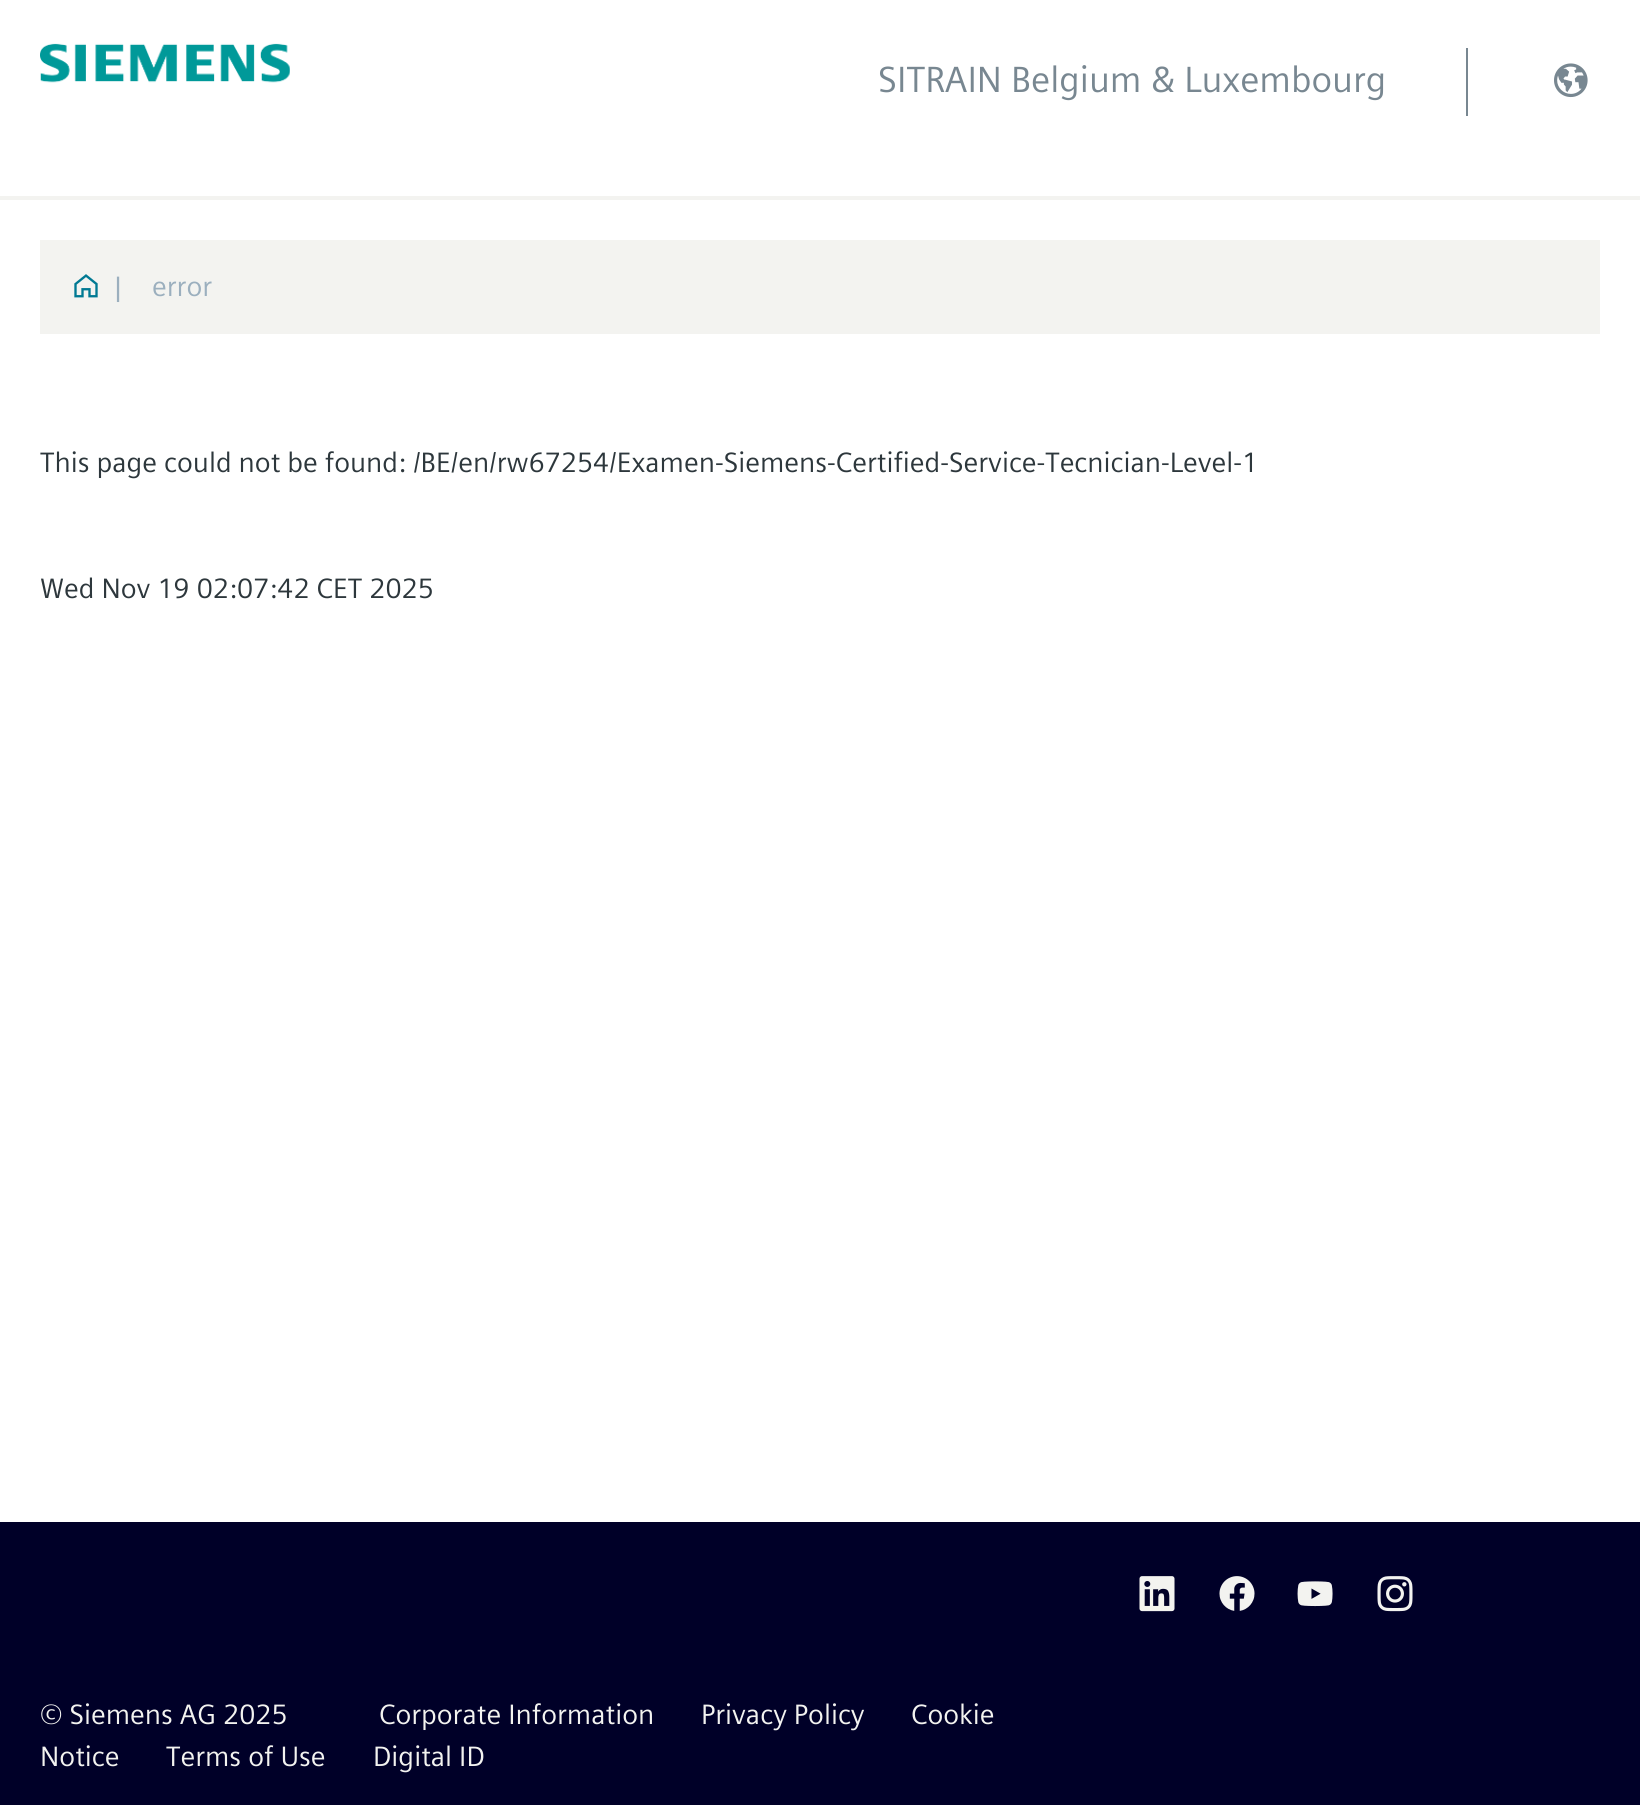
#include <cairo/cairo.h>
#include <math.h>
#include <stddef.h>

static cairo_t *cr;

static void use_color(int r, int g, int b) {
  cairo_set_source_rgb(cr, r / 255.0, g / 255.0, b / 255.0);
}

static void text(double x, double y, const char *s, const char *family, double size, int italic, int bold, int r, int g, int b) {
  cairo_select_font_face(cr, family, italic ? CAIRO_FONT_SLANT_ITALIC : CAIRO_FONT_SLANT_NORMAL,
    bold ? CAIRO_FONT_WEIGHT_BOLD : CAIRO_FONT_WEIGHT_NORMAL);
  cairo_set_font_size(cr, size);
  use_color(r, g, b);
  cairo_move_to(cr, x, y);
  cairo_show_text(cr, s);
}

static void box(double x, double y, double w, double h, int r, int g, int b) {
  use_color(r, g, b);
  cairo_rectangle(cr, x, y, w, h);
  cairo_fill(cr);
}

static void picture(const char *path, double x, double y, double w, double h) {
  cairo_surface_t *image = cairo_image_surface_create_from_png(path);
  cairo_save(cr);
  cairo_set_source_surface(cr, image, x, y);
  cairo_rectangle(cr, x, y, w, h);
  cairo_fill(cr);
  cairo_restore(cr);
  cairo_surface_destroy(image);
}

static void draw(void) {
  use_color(255, 255, 255);
  cairo_paint(cr);
  box(0, 196, 1640, 4, 243, 243, 240);
  picture("img_01.png", 40, 43, 250, 40);
  box(1466, 48, 2, 68, 120, 135, 145);
  picture("img_02.png", 1554, 63, 34, 35);
  box(40, 240, 1560, 94, 243, 243, 240);
  picture("img_03.png", 74, 274, 24, 24);
  box(0, 1522, 1640, 283, 0, 0, 40);
  picture("img_04.png", 1139, 1576, 36, 36);
  picture("img_05.png", 1219, 1576, 36, 35);
  picture("img_06.png", 1297, 1581, 36, 26);
  picture("img_07.png", 1377, 1576, 36, 36);
  text(878, 92, "SITRAIN Belgium & Luxembourg", "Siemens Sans", 36.4, 0, 0, 120, 135, 145);
  text(114, 296, "|", "Siemens Sans", 28, 0, 0, 155, 175, 190);
  text(152, 296, "error", "Siemens Sans", 28, 0, 0, 155, 175, 190);
  text(40, 472, "This page could not be found: /BE/en/rw67254/Examen-Siemens-Certified-Service-Tecnician-Level-1", "Siemens Sans", 28, 0, 0, 45, 55, 60);
  text(40, 598, "Wed Nov 19 02:07:42 CET 2025", "Siemens Sans", 28, 0, 0, 45, 55, 60);
  text(40, 1724, "© Siemens AG 2025", "Siemens Sans", 28, 0, 0, 243, 243, 240);
  text(379, 1724, "Corporate Information", "Siemens Sans", 28, 0, 0, 243, 243, 240);
  text(701, 1724, "Privacy Policy", "Siemens Sans", 28, 0, 0, 243, 243, 240);
  text(911, 1724, "Cookie", "Siemens Sans", 28, 0, 0, 243, 243, 240);
  text(40, 1766, "Notice", "Siemens Sans", 28, 0, 0, 243, 243, 240);
  text(166, 1766, "Terms of Use", "Siemens Sans", 28, 0, 0, 243, 243, 240);
  text(373, 1766, "Digital ID", "Siemens Sans", 28, 0, 0, 243, 243, 240);
}

int main(void) {
  cairo_surface_t *surface = cairo_image_surface_create(CAIRO_FORMAT_RGB24, 1640, 1805);
  cr = cairo_create(surface);
  cairo_font_options_t *options = cairo_font_options_create();
  cairo_font_options_set_hint_metrics(options, CAIRO_HINT_METRICS_OFF);
  cairo_font_options_set_hint_style(options, CAIRO_HINT_STYLE_NONE);
  cairo_set_font_options(cr, options);
  cairo_set_miter_limit(cr, 4);
  draw();
  cairo_surface_write_to_png(surface, "out.png");
  cairo_font_options_destroy(options);
  cairo_destroy(cr);
  cairo_surface_destroy(surface);
  return 0;
}
